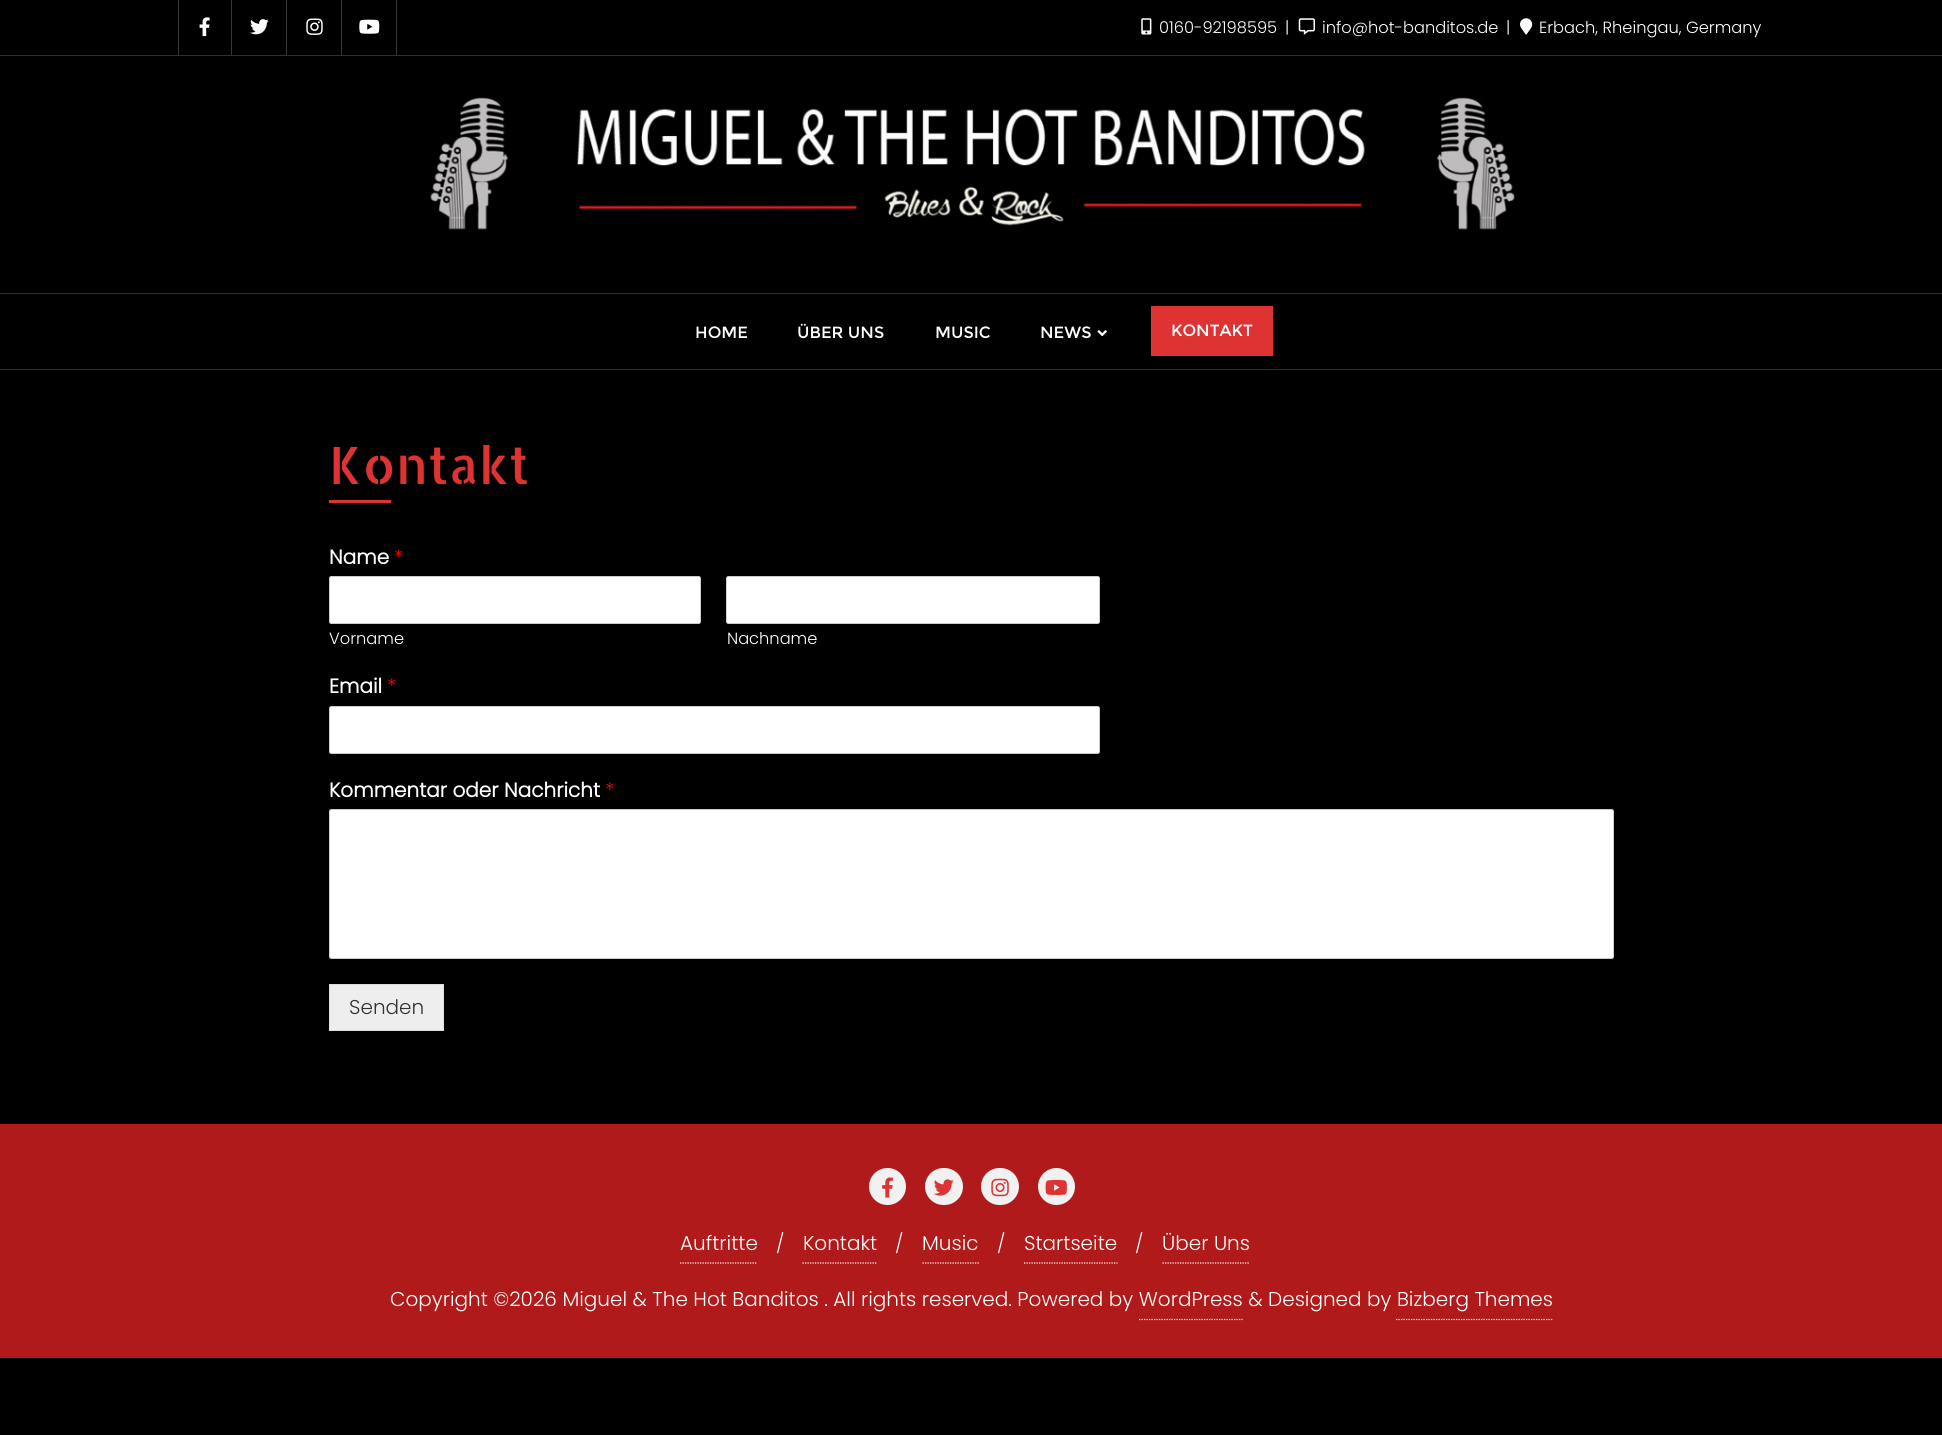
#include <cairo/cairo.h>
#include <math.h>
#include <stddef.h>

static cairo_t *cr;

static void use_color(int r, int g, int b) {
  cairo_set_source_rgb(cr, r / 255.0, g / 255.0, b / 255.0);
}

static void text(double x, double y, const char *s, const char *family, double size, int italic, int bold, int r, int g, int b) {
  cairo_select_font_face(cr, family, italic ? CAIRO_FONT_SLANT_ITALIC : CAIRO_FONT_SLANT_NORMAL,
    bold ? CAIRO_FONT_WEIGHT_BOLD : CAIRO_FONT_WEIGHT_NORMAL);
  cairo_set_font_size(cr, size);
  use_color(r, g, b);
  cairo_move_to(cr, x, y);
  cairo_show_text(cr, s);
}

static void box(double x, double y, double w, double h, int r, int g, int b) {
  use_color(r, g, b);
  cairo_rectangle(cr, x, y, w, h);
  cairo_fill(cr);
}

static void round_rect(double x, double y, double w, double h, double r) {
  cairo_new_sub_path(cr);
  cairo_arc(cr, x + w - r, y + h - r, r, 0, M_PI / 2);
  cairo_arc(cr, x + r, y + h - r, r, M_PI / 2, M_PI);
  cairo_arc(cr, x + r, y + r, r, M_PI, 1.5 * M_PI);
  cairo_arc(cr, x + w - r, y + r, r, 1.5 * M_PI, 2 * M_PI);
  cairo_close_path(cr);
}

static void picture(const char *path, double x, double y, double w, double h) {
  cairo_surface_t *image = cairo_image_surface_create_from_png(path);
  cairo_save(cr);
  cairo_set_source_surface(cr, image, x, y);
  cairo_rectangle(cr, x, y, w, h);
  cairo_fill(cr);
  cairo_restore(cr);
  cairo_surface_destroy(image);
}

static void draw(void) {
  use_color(0, 0, 0);
  cairo_paint(cr);
  box(0, 369, 1942, 1, 47, 47, 47);
  box(0, 55, 1942, 1, 47, 47, 47);
  box(231, 0, 1, 55, 56, 56, 56);
  box(178, 0, 1, 55, 56, 56, 56);
  picture("img_01.png", 199, 17, 11, 20);
  box(286, 0, 1, 55, 56, 56, 56);
  picture("img_02.png", 250, 19, 19, 16);
  box(341, 0, 1, 55, 56, 56, 56);
  picture("img_03.png", 306, 18, 17, 17);
  box(396, 0, 1, 55, 56, 56, 56);
  picture("img_04.png", 359, 19, 21, 15);
  picture("img_05.png", 1141, 18, 11, 17);
  picture("img_06.png", 1298, 18, 17, 17);
  picture("img_07.png", 1520, 18, 13, 17);
  box(0, 293, 1942, 1, 47, 47, 47);
  picture("img_08.png", 430, 97, 1085, 133);
  picture("img_09.png", 1097, 330, 10, 7);
  box(1151, 306, 122, 50, 221, 51, 51);
  box(329, 500, 62, 3, 221, 51, 51);
  use_color(255, 255, 255);
  round_rect(329.5, 576.5, 371, 47, 2);
  cairo_fill_preserve(cr);
  use_color(204, 204, 204);
  cairo_set_line_width(cr, 1);
  cairo_stroke(cr);
  use_color(255, 255, 255);
  round_rect(726.5, 576.5, 373, 47, 2);
  cairo_fill_preserve(cr);
  use_color(204, 204, 204);
  cairo_stroke(cr);
  use_color(255, 255, 255);
  round_rect(329.5, 706.5, 770, 47, 2);
  cairo_fill_preserve(cr);
  use_color(204, 204, 204);
  cairo_stroke(cr);
  use_color(255, 255, 255);
  round_rect(329.5, 809.5, 1284, 149, 2);
  cairo_fill_preserve(cr);
  use_color(204, 204, 204);
  cairo_stroke(cr);
  use_color(238, 238, 238);
  cairo_rectangle(cr, 329.5, 984.5, 114, 46);
  cairo_fill_preserve(cr);
  use_color(221, 221, 221);
  cairo_stroke(cr);
  box(0, 1124, 1942, 234, 177, 26, 26);
  use_color(241, 241, 241);
  cairo_arc(cr, 887.5, 1186.5, 18.5, 0, 2 * M_PI);
  cairo_fill(cr);
  picture("img_10.png", 882, 1177, 11, 21);
  round_rect(925, 1168, 38, 37, 18.5);
  cairo_fill(cr);
  picture("img_11.png", 934, 1179, 20, 17);
  round_rect(981, 1168, 38, 37, 18.5);
  cairo_fill(cr);
  picture("img_12.png", 991, 1178, 18, 19);
  cairo_arc(cr, 1056.5, 1186.5, 18.5, 0, 2 * M_PI);
  cairo_fill(cr);
  picture("img_13.png", 1045, 1180, 22, 15);
  cairo_new_path(cr);
  cairo_move_to(cr, 680, 1263);
  cairo_line_to(cr, 757.5, 1263);
  use_color(255, 255, 255);
  cairo_set_line_width(cr, 1.2);
  cairo_set_dash(cr, (double[]){1.25, 1.25}, 2, 0);
  cairo_stroke(cr);
  cairo_new_path(cr);
  cairo_move_to(cr, 802.5, 1263);
  cairo_line_to(cr, 877.5, 1263);
  cairo_stroke(cr);
  cairo_new_path(cr);
  cairo_move_to(cr, 922.5, 1263);
  cairo_line_to(cr, 979, 1263);
  cairo_stroke(cr);
  cairo_new_path(cr);
  cairo_move_to(cr, 1024, 1263);
  cairo_line_to(cr, 1117.5, 1263);
  cairo_stroke(cr);
  cairo_new_path(cr);
  cairo_move_to(cr, 1162.5, 1263);
  cairo_line_to(cr, 1250, 1263);
  cairo_stroke(cr);
  cairo_new_path(cr);
  cairo_move_to(cr, 1139, 1319.5);
  cairo_line_to(cr, 1242.5, 1319.5);
  cairo_stroke(cr);
  cairo_new_path(cr);
  cairo_move_to(cr, 1396, 1319.5);
  cairo_line_to(cr, 1552.5, 1319.5);
  cairo_stroke(cr);
  text(1159, 33, "0160-92198595", "Poppins Light", 16.25, 0, 0, 255, 255, 255);
  text(1285, 33, "|", "Poppins Light", 16.25, 0, 0, 255, 255, 255);
  text(1322, 33, "info@hot-banditos.de", "Poppins Light", 16.25, 0, 0, 255, 255, 255);
  text(1506, 33, "|", "Poppins Light", 16.25, 0, 0, 255, 255, 255);
  text(1539, 33, "Erbach, Rheingau, Germany", "Poppins Light", 16.25, 0, 0, 255, 255, 255);
  text(695, 338, "HOME", "Montserrat", 16.25, 0, 0, 255, 255, 255);
  text(797, 338, "ÜBER UNS", "Montserrat", 16.25, 0, 0, 255, 255, 255);
  text(935, 338, "MUSIC", "Montserrat", 16.25, 0, 0, 255, 255, 255);
  text(1040, 338, "NEWS", "Montserrat", 16.25, 0, 0, 255, 255, 255);
  text(1171, 336, "KONTAKT", "Montserrat", 16.25, 0, 0, 255, 255, 255);
  text(329, 484, "Kontakt", "Allerta Stencil", 51.5, 0, 0, 221, 51, 51);
  text(329, 564, "Name", "Poppins", 20, 0, 1, 255, 255, 255);
  text(394, 564, "*", "Poppins Light", 20, 0, 0, 255, 0, 0);
  text(329, 644, "Vorname", "Poppins Light", 16.25, 0, 0, 255, 255, 255);
  text(727, 644, "Nachname", "Poppins Light", 16.25, 0, 0, 255, 255, 255);
  text(329, 693, "Email", "Poppins", 20, 0, 1, 255, 255, 255);
  text(387, 693, "*", "Poppins Light", 20, 0, 0, 255, 0, 0);
  text(329, 797, "Kommentar oder Nachricht", "Poppins", 20, 0, 1, 255, 255, 255);
  text(605, 797, "*", "Poppins Light", 20, 0, 0, 255, 0, 0);
  text(349, 1014, "Senden", "Poppins Light", 20, 0, 0, 51, 51, 51);
  text(680, 1250, "Auftritte", "Poppins Light", 20, 0, 0, 255, 255, 255);
  text(776, 1250, "/", "Poppins Light", 19, 0, 0, 255, 255, 255);
  text(803, 1250, "Kontakt", "Poppins Light", 20, 0, 0, 255, 255, 255);
  text(895, 1250, "/", "Poppins Light", 19, 0, 0, 255, 255, 255);
  text(922, 1250, "Music", "Poppins Light", 20, 0, 0, 255, 255, 255);
  text(997, 1250, "/", "Poppins Light", 19, 0, 0, 255, 255, 255);
  text(1024, 1250, "Startseite", "Poppins Light", 20, 0, 0, 255, 255, 255);
  text(1135, 1250, "/", "Poppins Light", 19, 0, 0, 255, 255, 255);
  text(1162, 1250, "Über Uns", "Poppins Light", 20, 0, 0, 255, 255, 255);
  text(390, 1306, "Copyright ©2026 Miguel & The Hot Banditos . All rights reserved. Powered by WordPress & Designed by Bizberg Themes", "Poppins Light", 20, 0, 0, 255, 255, 255);
}

int main(void) {
  cairo_surface_t *surface = cairo_image_surface_create(CAIRO_FORMAT_RGB24, 1942, 1435);
  cr = cairo_create(surface);
  cairo_font_options_t *options = cairo_font_options_create();
  cairo_font_options_set_hint_metrics(options, CAIRO_HINT_METRICS_OFF);
  cairo_font_options_set_hint_style(options, CAIRO_HINT_STYLE_NONE);
  cairo_set_font_options(cr, options);
  cairo_set_miter_limit(cr, 4);
  draw();
  cairo_surface_write_to_png(surface, "out.png");
  cairo_font_options_destroy(options);
  cairo_destroy(cr);
  cairo_surface_destroy(surface);
  return 0;
}
